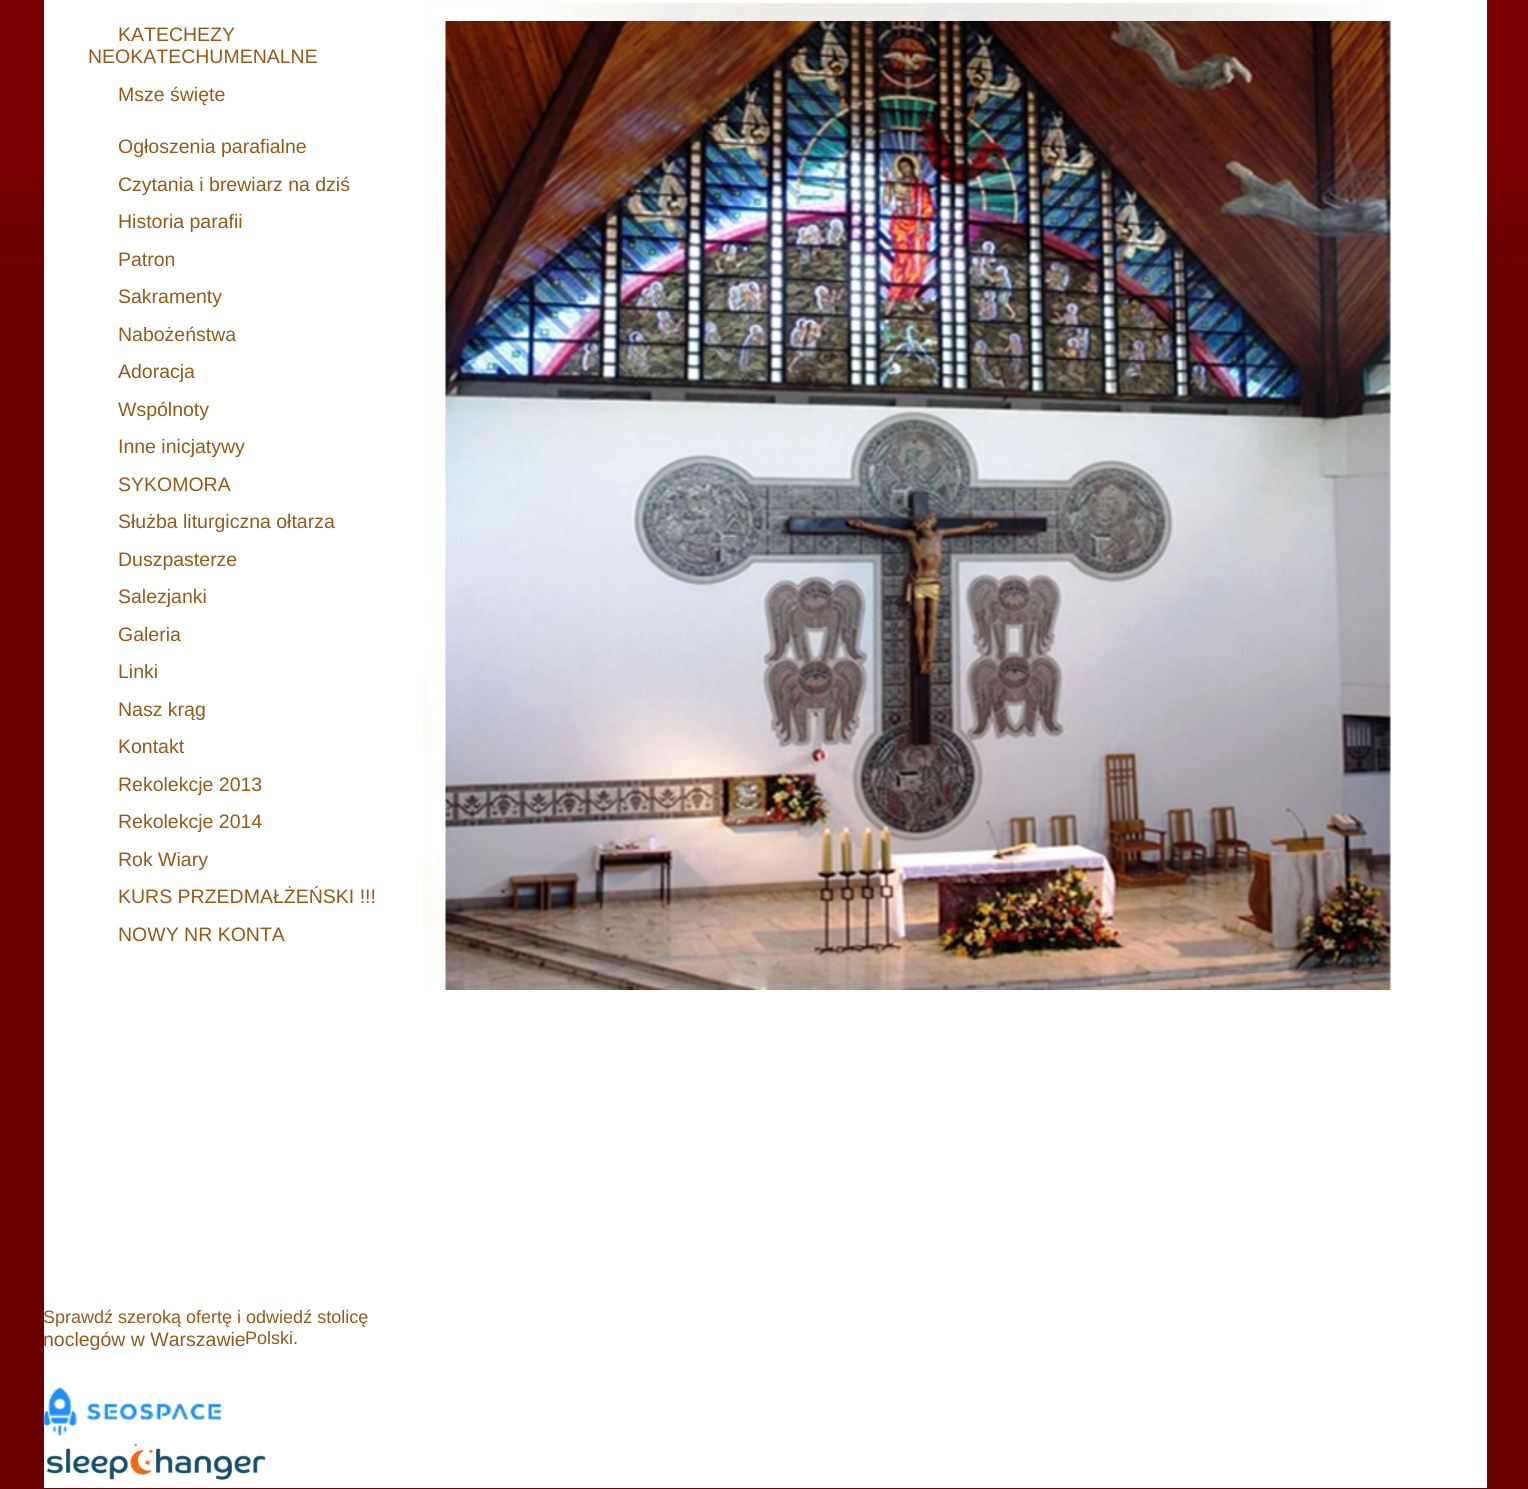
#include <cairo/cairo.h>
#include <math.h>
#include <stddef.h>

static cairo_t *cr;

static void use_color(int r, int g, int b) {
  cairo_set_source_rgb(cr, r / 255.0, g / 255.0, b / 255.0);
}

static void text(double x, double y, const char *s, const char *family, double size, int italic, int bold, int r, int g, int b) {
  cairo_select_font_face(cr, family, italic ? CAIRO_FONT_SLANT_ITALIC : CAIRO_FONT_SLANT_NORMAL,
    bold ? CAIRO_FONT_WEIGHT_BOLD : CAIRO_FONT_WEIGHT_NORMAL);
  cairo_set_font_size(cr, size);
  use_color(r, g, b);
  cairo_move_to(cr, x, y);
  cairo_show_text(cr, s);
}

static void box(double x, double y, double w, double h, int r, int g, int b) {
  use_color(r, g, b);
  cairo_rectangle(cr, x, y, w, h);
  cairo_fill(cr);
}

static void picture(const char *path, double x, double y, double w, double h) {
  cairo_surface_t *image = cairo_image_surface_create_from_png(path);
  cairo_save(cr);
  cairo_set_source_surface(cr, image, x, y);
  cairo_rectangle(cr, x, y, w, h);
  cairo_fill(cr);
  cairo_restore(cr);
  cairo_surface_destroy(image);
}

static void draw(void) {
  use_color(106, 0, 0);
  cairo_paint(cr);
  picture("img_01.png", 0, 0, 1528, 264);
  box(44, 0, 1443, 1488, 255, 255, 255);
  picture("img_02.png", 43, 1387, 180, 49);
  picture("img_03.png", 46, 1443, 220, 37);
  picture("img_04.png", 423, 0, 962, 990);
  picture("img_05.png", 445, 21, 946, 969);
  text(118, 41, "KATECHEZY", "Liberation Sans", 19.5, 0, 0, 150, 89, 26);
  text(88, 63, "NEOKATECHUMENALNE", "Liberation Sans", 19.5, 0, 0, 150, 89, 26);
  text(118, 101, "Msze święte", "Liberation Sans", 19.5, 0, 0, 150, 89, 26);
  text(118, 153, "Ogłoszenia parafialne", "Liberation Sans", 19.5, 0, 0, 150, 89, 26);
  text(118, 191, "Czytania i brewiarz na dziś", "Liberation Sans", 19.5, 0, 0, 150, 89, 26);
  text(118, 228, "Historia parafii", "Liberation Sans", 19.5, 0, 0, 150, 89, 26);
  text(118, 266, "Patron", "Liberation Sans", 19.5, 0, 0, 150, 89, 26);
  text(118, 303, "Sakramenty", "Liberation Sans", 19.5, 0, 0, 150, 89, 26);
  text(118, 341, "Nabożeństwa", "Liberation Sans", 19.5, 0, 0, 150, 89, 26);
  text(118, 378, "Adoracja", "Liberation Sans", 19.5, 0, 0, 150, 89, 26);
  text(118, 416, "Wspólnoty", "Liberation Sans", 19.5, 0, 0, 150, 89, 26);
  text(118, 453, "Inne inicjatywy", "Liberation Sans", 19.5, 0, 0, 150, 89, 26);
  text(118, 491, "SYKOMORA", "Liberation Sans", 19.5, 0, 0, 150, 89, 26);
  text(118, 528, "Służba liturgiczna ołtarza", "Liberation Sans", 19.5, 0, 0, 150, 89, 26);
  text(118, 566, "Duszpasterze", "Liberation Sans", 19.5, 0, 0, 150, 89, 26);
  text(118, 603, "Salezjanki", "Liberation Sans", 19.5, 0, 0, 150, 89, 26);
  text(118, 641, "Galeria", "Liberation Sans", 19.5, 0, 0, 150, 89, 26);
  text(118, 678, "Linki", "Liberation Sans", 19.5, 0, 0, 150, 89, 26);
  text(118, 716, "Nasz krąg", "Liberation Sans", 19.5, 0, 0, 150, 89, 26);
  text(118, 753, "Kontakt", "Liberation Sans", 19.5, 0, 0, 150, 89, 26);
  text(118, 791, "Rekolekcje 2013", "Liberation Sans", 19.5, 0, 0, 150, 89, 26);
  text(118, 828, "Rekolekcje 2014", "Liberation Sans", 19.5, 0, 0, 150, 89, 26);
  text(118, 866, "Rok Wiary", "Liberation Sans", 19.5, 0, 0, 150, 89, 26);
  text(118, 903, "KURS PRZEDMAŁŻEŃSKI !!!", "Liberation Sans", 19.5, 0, 0, 150, 89, 26);
  text(118, 941, "NOWY NR KONTA", "Liberation Sans", 19.5, 0, 0, 150, 89, 26);
  text(43, 1323, "Sprawdź szeroką ofertę i odwiedź stolicę", "Liberation Sans", 18, 0, 0, 150, 89, 26);
  text(43, 1346, "noclegów w Warszawie", "Liberation Sans", 19.5, 0, 0, 150, 89, 26);
  text(245, 1344, "Polski.", "Liberation Sans", 18, 0, 0, 150, 89, 26);
}

int main(void) {
  cairo_surface_t *surface = cairo_image_surface_create(CAIRO_FORMAT_RGB24, 1528, 1489);
  cr = cairo_create(surface);
  cairo_font_options_t *options = cairo_font_options_create();
  cairo_font_options_set_hint_metrics(options, CAIRO_HINT_METRICS_OFF);
  cairo_font_options_set_hint_style(options, CAIRO_HINT_STYLE_NONE);
  cairo_set_font_options(cr, options);
  cairo_set_miter_limit(cr, 4);
  draw();
  cairo_surface_write_to_png(surface, "out.png");
  cairo_font_options_destroy(options);
  cairo_destroy(cr);
  cairo_surface_destroy(surface);
  return 0;
}
